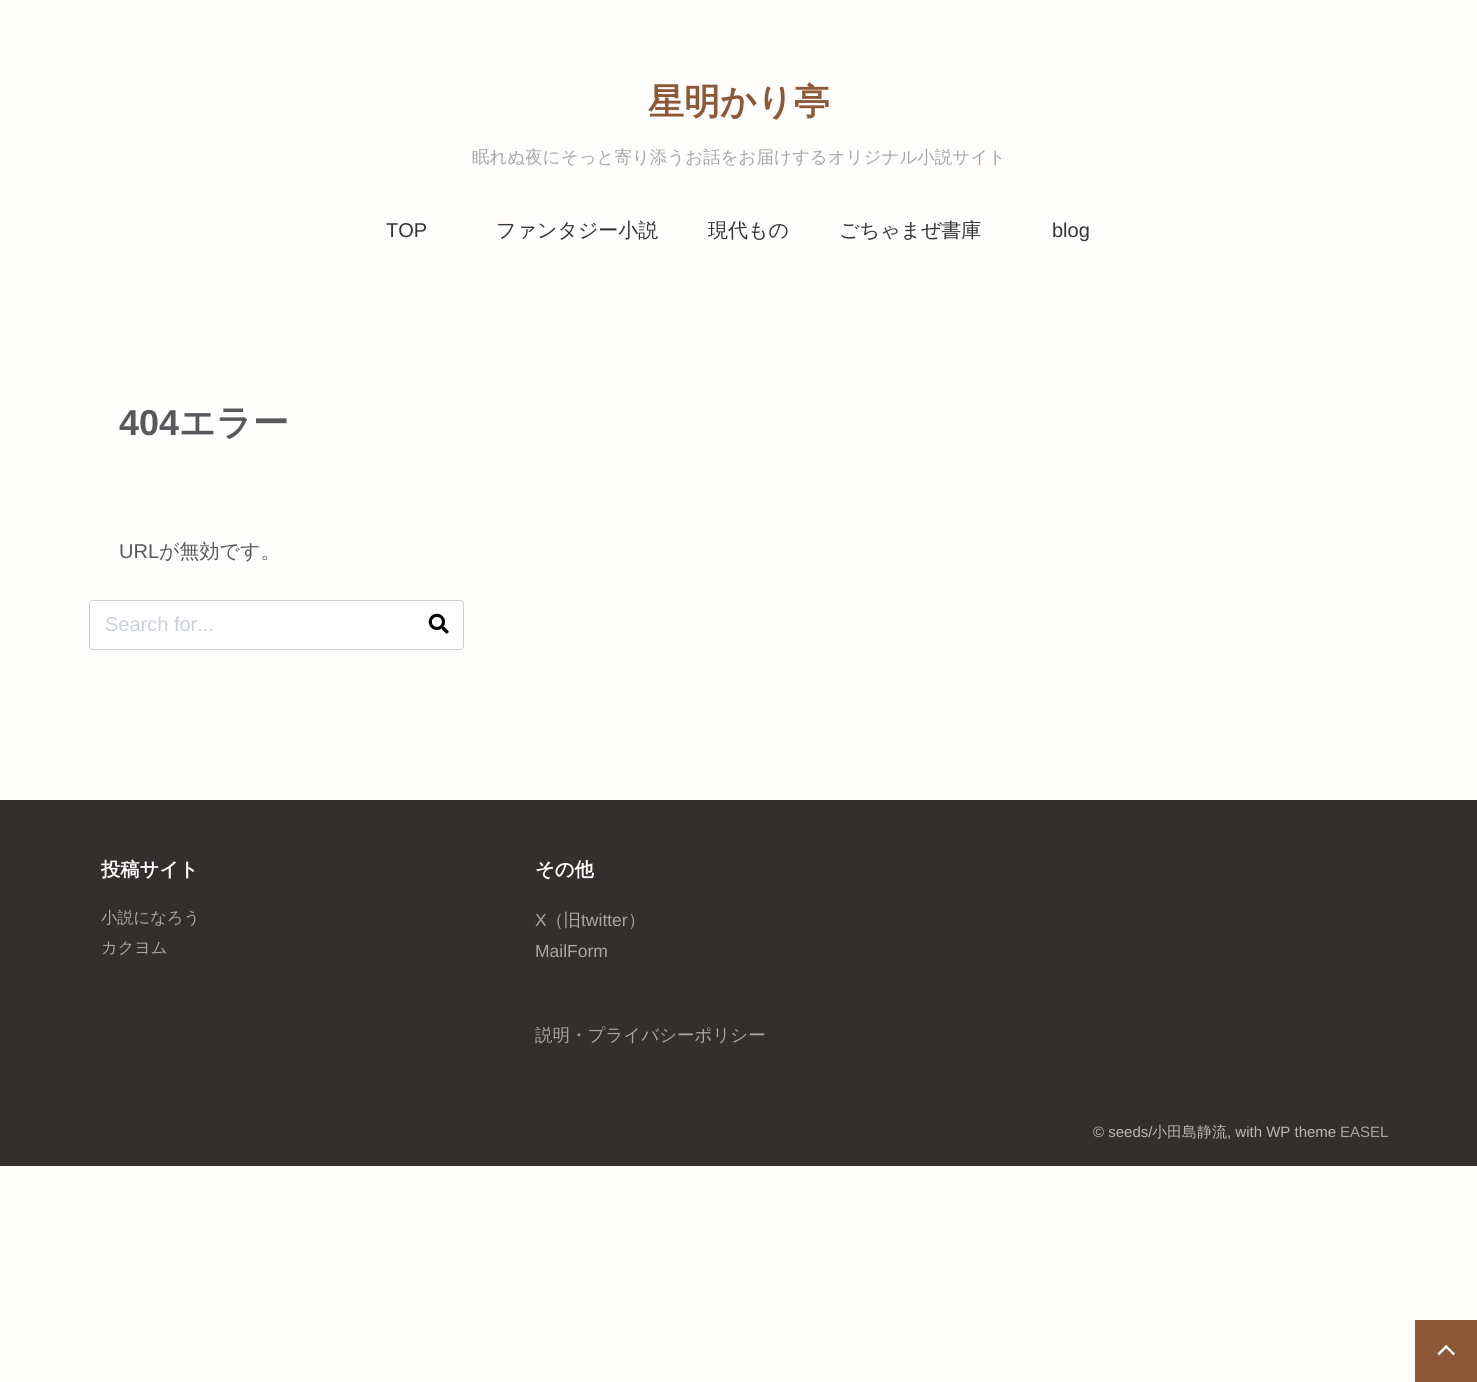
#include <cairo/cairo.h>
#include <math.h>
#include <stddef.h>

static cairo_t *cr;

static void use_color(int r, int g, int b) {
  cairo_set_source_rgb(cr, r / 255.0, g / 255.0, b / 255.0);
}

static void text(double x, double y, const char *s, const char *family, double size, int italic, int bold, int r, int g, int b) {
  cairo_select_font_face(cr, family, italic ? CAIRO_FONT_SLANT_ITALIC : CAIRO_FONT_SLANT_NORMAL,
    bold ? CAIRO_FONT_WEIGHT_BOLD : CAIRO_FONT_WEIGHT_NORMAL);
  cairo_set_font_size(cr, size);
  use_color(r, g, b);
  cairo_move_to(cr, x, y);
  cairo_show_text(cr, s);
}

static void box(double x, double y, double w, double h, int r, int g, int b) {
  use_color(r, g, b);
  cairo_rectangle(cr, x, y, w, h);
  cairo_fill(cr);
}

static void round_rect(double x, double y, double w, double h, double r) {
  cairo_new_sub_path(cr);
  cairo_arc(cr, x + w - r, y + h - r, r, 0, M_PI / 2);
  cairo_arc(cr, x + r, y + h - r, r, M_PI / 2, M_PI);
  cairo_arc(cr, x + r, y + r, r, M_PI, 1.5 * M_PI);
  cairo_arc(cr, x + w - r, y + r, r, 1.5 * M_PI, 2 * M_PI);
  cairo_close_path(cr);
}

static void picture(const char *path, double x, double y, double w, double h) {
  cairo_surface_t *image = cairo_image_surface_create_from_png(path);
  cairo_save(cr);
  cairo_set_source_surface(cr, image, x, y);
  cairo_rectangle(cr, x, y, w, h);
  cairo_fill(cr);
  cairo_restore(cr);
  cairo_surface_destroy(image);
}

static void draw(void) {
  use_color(255, 254, 252);
  cairo_paint(cr);
  use_color(255, 255, 255);
  round_rect(89.5, 600.5, 374, 49, 3.5);
  cairo_fill_preserve(cr);
  use_color(206, 206, 206);
  cairo_set_line_width(cr, 1);
  cairo_stroke(cr);
  picture("img_01.png", 428, 613, 21, 21);
  box(0, 800, 1477, 366, 50, 48, 47);
  box(1415, 1320, 62, 62, 141, 88, 55);
  use_color(255, 255, 255);
  cairo_new_path(cr);
  cairo_move_to(cr, 1446, 1345);
  cairo_line_to(cr, 1455, 1353.5);
  cairo_line_to(cr, 1453.5, 1355.5);
  cairo_line_to(cr, 1444.5, 1346.5);
  cairo_close_path(cr);
  cairo_fill(cr);
  cairo_new_path(cr);
  cairo_move_to(cr, 1446, 1345);
  cairo_line_to(cr, 1448, 1346.5);
  cairo_line_to(cr, 1439, 1355.5);
  cairo_line_to(cr, 1437.5, 1353.5);
  cairo_close_path(cr);
  cairo_fill(cr);
  text(648, 114, "星明かり亭", "WenQuanYi Zen Hei", 36, 0, 1, 141, 88, 55);
  text(472, 163, "眠れぬ夜にそっと寄り添うお話をお届けするオリジナル小説サイト", "WenQuanYi Zen Hei Medium", 17.5, 0, 0, 167, 167, 167);
  text(386, 237, "TOP", "Liberation Sans", 20, 0, 0, 50, 52, 56);
  text(496, 237, "ファンタジー小説", "WenQuanYi Zen Hei Medium", 20, 0, 0, 50, 52, 56);
  text(708, 237, "現代もの", "WenQuanYi Zen Hei Medium", 20, 0, 0, 50, 52, 56);
  text(839, 237, "ごちゃまぜ書庫", "WenQuanYi Zen Hei Medium", 20, 0, 0, 50, 52, 56);
  text(1052, 237, "blog", "Liberation Sans", 20, 0, 0, 50, 52, 56);
  text(119, 435, "404", "Liberation Sans", 36, 0, 1, 87, 89, 93);
  text(179, 435, "エラー", "WenQuanYi Zen Hei", 36, 0, 1, 87, 89, 93);
  text(119, 558, "URL", "Liberation Sans", 20, 0, 0, 87, 89, 93);
  text(159, 558, "が無効です。", "WenQuanYi Zen Hei Medium", 20, 0, 0, 87, 89, 93);
  text(105, 631, "Search for...", "Liberation Sans", 20, 0, 0, 203, 207, 216);
  text(101, 876, "投稿サイト", "WenQuanYi Zen Hei", 19.25, 0, 1, 255, 254, 252);
  text(101, 923, "小説になろう", "WenQuanYi Zen Hei Medium", 16.25, 0, 0, 171, 166, 154);
  text(101, 953, "カクヨム", "WenQuanYi Zen Hei Medium", 16.25, 0, 0, 171, 166, 154);
  text(535, 876, "その他", "WenQuanYi Zen Hei", 19.25, 0, 1, 255, 254, 252);
  text(535, 926, "X", "Liberation Sans", 17.5, 0, 0, 171, 166, 154);
  text(546, 926, "（旧", "WenQuanYi Zen Hei Medium", 17.5, 0, 0, 171, 166, 154);
  text(581, 926, "twitter", "Liberation Sans", 17.5, 0, 0, 171, 166, 154);
  text(628, 926, "）", "WenQuanYi Zen Hei Medium", 17.5, 0, 0, 171, 166, 154);
  text(535, 957, "MailForm", "Liberation Sans", 17.5, 0, 0, 171, 166, 154);
  text(535, 1041, "説明・プライバシーポリシー", "WenQuanYi Zen Hei Medium", 17.5, 0, 0, 171, 166, 154);
  text(1093, 1137, "© seeds/", "Liberation Sans", 15, 0, 0, 186, 184, 179);
  text(1152, 1137, "小田島静流", "WenQuanYi Zen Hei Medium", 15, 0, 0, 186, 184, 179);
  text(1227, 1137, ", with WP theme", "Liberation Sans", 15, 0, 0, 186, 184, 179);
  text(1340, 1137, "EASEL", "Liberation Sans", 15, 0, 0, 171, 166, 154);
}

int main(void) {
  cairo_surface_t *surface = cairo_image_surface_create(CAIRO_FORMAT_RGB24, 1477, 1382);
  cr = cairo_create(surface);
  cairo_font_options_t *options = cairo_font_options_create();
  cairo_font_options_set_hint_metrics(options, CAIRO_HINT_METRICS_OFF);
  cairo_font_options_set_hint_style(options, CAIRO_HINT_STYLE_NONE);
  cairo_set_font_options(cr, options);
  cairo_set_miter_limit(cr, 4);
  draw();
  cairo_surface_write_to_png(surface, "out.png");
  cairo_font_options_destroy(options);
  cairo_destroy(cr);
  cairo_surface_destroy(surface);
  return 0;
}
